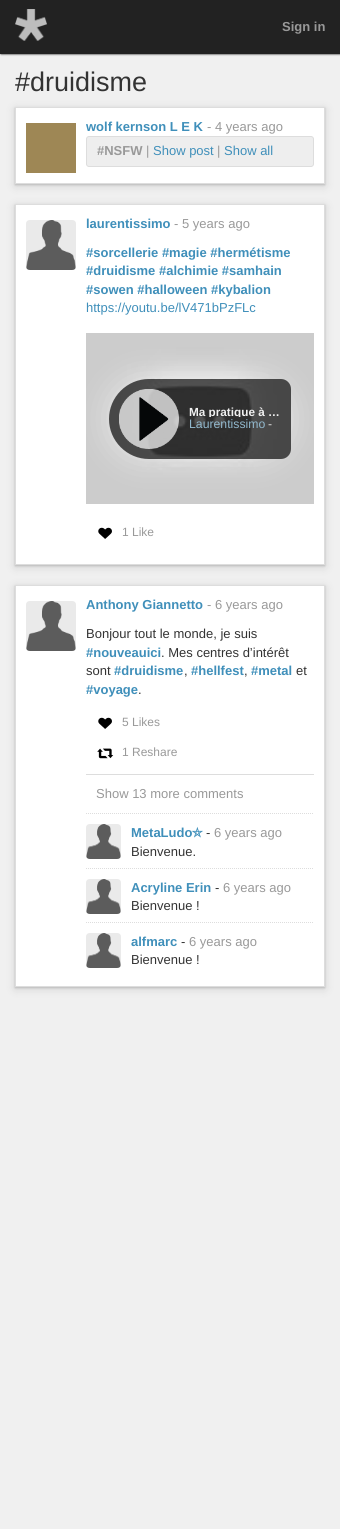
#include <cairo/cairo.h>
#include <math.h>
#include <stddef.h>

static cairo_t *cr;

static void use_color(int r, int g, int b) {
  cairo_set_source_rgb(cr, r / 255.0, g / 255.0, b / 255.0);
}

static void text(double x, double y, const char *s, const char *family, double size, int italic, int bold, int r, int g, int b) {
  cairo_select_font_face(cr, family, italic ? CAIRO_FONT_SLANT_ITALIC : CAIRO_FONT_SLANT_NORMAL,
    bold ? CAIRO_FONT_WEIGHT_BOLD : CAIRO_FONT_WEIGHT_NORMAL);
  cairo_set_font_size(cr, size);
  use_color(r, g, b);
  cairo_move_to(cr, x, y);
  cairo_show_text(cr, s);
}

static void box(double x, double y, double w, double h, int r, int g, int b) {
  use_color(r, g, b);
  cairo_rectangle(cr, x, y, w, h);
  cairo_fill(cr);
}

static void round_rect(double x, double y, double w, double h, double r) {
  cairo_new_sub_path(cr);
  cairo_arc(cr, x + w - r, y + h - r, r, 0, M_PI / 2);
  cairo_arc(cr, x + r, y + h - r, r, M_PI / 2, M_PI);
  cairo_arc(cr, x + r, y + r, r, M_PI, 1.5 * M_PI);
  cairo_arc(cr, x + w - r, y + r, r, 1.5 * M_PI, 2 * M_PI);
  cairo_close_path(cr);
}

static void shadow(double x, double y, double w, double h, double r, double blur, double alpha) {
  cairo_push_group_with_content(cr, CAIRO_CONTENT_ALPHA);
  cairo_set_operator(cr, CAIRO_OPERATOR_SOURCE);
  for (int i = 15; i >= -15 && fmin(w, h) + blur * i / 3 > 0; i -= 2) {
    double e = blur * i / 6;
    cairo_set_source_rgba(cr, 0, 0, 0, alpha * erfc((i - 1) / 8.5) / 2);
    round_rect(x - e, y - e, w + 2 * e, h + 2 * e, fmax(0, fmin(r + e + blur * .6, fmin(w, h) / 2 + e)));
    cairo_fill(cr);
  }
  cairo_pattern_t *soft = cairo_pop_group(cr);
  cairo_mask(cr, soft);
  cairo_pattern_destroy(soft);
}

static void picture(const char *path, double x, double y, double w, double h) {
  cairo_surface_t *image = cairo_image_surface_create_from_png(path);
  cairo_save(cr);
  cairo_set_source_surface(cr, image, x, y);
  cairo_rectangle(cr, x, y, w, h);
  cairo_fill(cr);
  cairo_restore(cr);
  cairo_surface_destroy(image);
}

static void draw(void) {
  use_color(240, 240, 240);
  cairo_paint(cr);
  use_color(0, 0, 0);
  shadow(1, 0, 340, 54, 0, 1, 1);
  box(0, 0, 340, 54, 34, 34, 34);
  picture("img_01.png", 15, 9, 32, 32);
  use_color(0, 0, 0);
  shadow(15, 109, 310, 77, 0, 5, 0.12);
  shadow(15, 108, 310, 77, 0, 1, 0.16);
  use_color(255, 255, 255);
  cairo_rectangle(cr, 15.5, 107.5, 309, 76);
  cairo_fill_preserve(cr);
  use_color(221, 221, 221);
  cairo_set_line_width(cr, 1);
  cairo_stroke(cr);
  box(26, 123, 50, 50, 158, 135, 85);
  use_color(238, 238, 238);
  round_rect(86.5, 136.5, 227, 30, 2.5);
  cairo_fill_preserve(cr);
  use_color(221, 221, 221);
  cairo_stroke(cr);
  use_color(0, 0, 0);
  shadow(15, 206, 310, 361, 0, 5, 0.12);
  shadow(15, 205, 310, 361, 0, 1, 0.16);
  use_color(255, 255, 255);
  cairo_rectangle(cr, 15.5, 204.5, 309, 360);
  cairo_fill_preserve(cr);
  use_color(221, 221, 221);
  cairo_stroke(cr);
  picture("img_02.png", 26, 220, 50, 50);
  picture("img_03.png", 86, 333, 228, 171);
  cairo_save(cr);
  cairo_rectangle(cr, 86, 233, 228, 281);
  cairo_clip(cr);
  cairo_set_fill_rule(cr, CAIRO_FILL_RULE_EVEN_ODD);
  cairo_new_path(cr);
  cairo_move_to(cr, 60, 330);
  cairo_line_to(cr, 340, 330);
  cairo_line_to(cr, 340, 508);
  cairo_line_to(cr, 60, 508);
  cairo_close_path(cr);
  cairo_move_to(cr, 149, 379);
  cairo_line_to(cr, 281, 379);
  cairo_curve_to(cr, 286.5, 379, 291, 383.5, 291, 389);
  cairo_line_to(cr, 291, 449);
  cairo_curve_to(cr, 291, 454.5, 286.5, 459, 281, 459);
  cairo_line_to(cr, 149, 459);
  cairo_curve_to(cr, 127, 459, 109, 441, 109, 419);
  cairo_curve_to(cr, 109, 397, 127, 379, 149, 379);
  cairo_close_path(cr);
  cairo_clip(cr);
  use_color(255, 255, 255);
  shadow(109, 379, 182, 80, 40, 16, 0.5);
  cairo_restore(cr);
  cairo_set_source_rgba(cr, 0, 0, 0, 0.65);
  cairo_new_path(cr);
  cairo_move_to(cr, 149, 379);
  cairo_line_to(cr, 281, 379);
  cairo_curve_to(cr, 286.5, 379, 291, 383.5, 291, 389);
  cairo_line_to(cr, 291, 449);
  cairo_curve_to(cr, 291, 454.5, 286.5, 459, 281, 459);
  cairo_line_to(cr, 149, 459);
  cairo_curve_to(cr, 127, 459, 109, 441, 109, 419);
  cairo_curve_to(cr, 109, 397, 127, 379, 149, 379);
  cairo_close_path(cr);
  cairo_fill(cr);
  picture("img_04.png", 119, 389, 60, 60);
  picture("img_05.png", 98, 527, 14, 12);
  use_color(0, 0, 0);
  shadow(15, 587, 310, 402, 0, 5, 0.12);
  shadow(15, 586, 310, 402, 0, 1, 0.16);
  use_color(255, 255, 255);
  cairo_rectangle(cr, 15.5, 585.5, 309, 401);
  cairo_fill_preserve(cr);
  use_color(221, 221, 221);
  cairo_stroke(cr);
  picture("img_02.png", 26, 601, 50, 50);
  picture("img_05.png", 98, 717, 14, 12);
  picture("img_06.png", 97, 748, 17, 11);
  box(86, 774, 228, 1, 221, 221, 221);
  cairo_new_path(cr);
  cairo_move_to(cr, 86, 813.5);
  cairo_line_to(cr, 314, 813.5);
  cairo_set_dash(cr, (double[]){1, 1}, 2, 0);
  cairo_stroke(cr);
  picture("img_07.png", 86, 824, 35, 35);
  cairo_new_path(cr);
  cairo_move_to(cr, 86, 868.5);
  cairo_line_to(cr, 314, 868.5);
  cairo_stroke(cr);
  picture("img_07.png", 86, 879, 35, 35);
  cairo_new_path(cr);
  cairo_move_to(cr, 86, 922.5);
  cairo_line_to(cr, 314, 922.5);
  cairo_stroke(cr);
  picture("img_07.png", 86, 933, 35, 35);
  text(282, 31, "Sign in", "Liberation Sans", 13, 0, 1, 153, 153, 153);
  text(15, 91, "#druidisme", "Liberation Sans", 27, 0, 0, 51, 51, 51);
  text(86, 131, "wolf kernson L E K", "Liberation Sans", 13, 0, 1, 63, 143, 186);
  text(207, 131, "- 4 years ago", "Liberation Sans", 13, 0, 0, 153, 153, 153);
  text(97, 155, "#NSFW", "Liberation Sans", 13, 0, 1, 153, 153, 153);
  text(146, 155, "|", "Liberation Sans", 13, 0, 0, 153, 153, 153);
  text(153, 155, "Show post", "Liberation Sans", 13, 0, 0, 63, 143, 186);
  text(217, 155, "|", "Liberation Sans", 13, 0, 0, 153, 153, 153);
  text(224, 155, "Show all", "Liberation Sans", 13, 0, 0, 63, 143, 186);
  text(86, 228, "laurentissimo", "Liberation Sans", 13, 0, 1, 63, 143, 186);
  text(174, 228, "- 5 years ago", "Liberation Sans", 13, 0, 0, 153, 153, 153);
  text(86, 257, "#sorcellerie #magie #hermétisme", "Liberation Sans", 13, 0, 1, 63, 143, 186);
  text(86, 275, "#druidisme #alchimie #samhain", "Liberation Sans", 13, 0, 1, 63, 143, 186);
  text(86, 294, "#sowen #halloween #kybalion", "Liberation Sans", 13, 0, 1, 63, 143, 186);
  text(86, 312, "https://youtu.be/lV471bPzFLc", "Liberation Sans", 13, 0, 0, 63, 143, 186);
  cairo_save(cr);
  cairo_rectangle(cr, 189, 406, 95, 11);
  cairo_clip(cr);
  text(189, 416, "Ma pratique à …", "Liberation Sans", 11.75, 0, 1, 240, 240, 240);
  cairo_restore(cr);
  text(189, 428, "Laurentissimo", "Liberation Sans", 12.25, 0, 0, 145, 184, 205);
  text(268, 428, "-", "Liberation Sans", 12.25, 0, 0, 223, 223, 223);
  text(122, 536, "1 Like", "Liberation Sans", 12, 0, 0, 153, 153, 153);
  text(86, 609, "Anthony Giannetto", "Liberation Sans", 13, 0, 1, 63, 143, 186);
  text(207, 609, "- 6 years ago", "Liberation Sans", 13, 0, 0, 153, 153, 153);
  text(86, 638, "Bonjour tout le monde, je suis", "Liberation Sans", 13, 0, 0, 51, 51, 51);
  text(86, 657, "#nouveauici", "Liberation Sans", 13, 0, 1, 63, 143, 186);
  text(161, 657, ". Mes centres d’intérêt", "Liberation Sans", 13, 0, 0, 51, 51, 51);
  text(86, 675, "sont", "Liberation Sans", 13, 0, 0, 51, 51, 51);
  text(114, 675, "#druidisme", "Liberation Sans", 13, 0, 1, 63, 143, 186);
  text(184, 675, ",", "Liberation Sans", 13, 0, 0, 51, 51, 51);
  text(191, 675, "#hellfest", "Liberation Sans", 13, 0, 1, 63, 143, 186);
  text(244, 675, ",", "Liberation Sans", 13, 0, 0, 51, 51, 51);
  text(251, 675, "#metal", "Liberation Sans", 13, 0, 1, 63, 143, 186);
  text(296, 675, "et", "Liberation Sans", 13, 0, 0, 51, 51, 51);
  text(86, 694, "#voyage", "Liberation Sans", 13, 0, 1, 63, 143, 186);
  text(138, 694, ".", "Liberation Sans", 13, 0, 0, 51, 51, 51);
  text(122, 726, "5 Likes", "Liberation Sans", 12, 0, 0, 153, 153, 153);
  text(122, 756, "1 Reshare", "Liberation Sans", 12, 0, 0, 153, 153, 153);
  text(96, 798, "Show 13 more comments", "Liberation Sans", 13, 0, 0, 153, 153, 153);
  text(131, 837, "MetaLudo", "Liberation Sans", 13, 0, 1, 63, 143, 186);
  text(192, 837, "⛤", "FreeSans", 13, 0, 1, 63, 143, 186);
  text(206, 837, "-", "Liberation Sans", 13, 0, 0, 51, 51, 51);
  text(214, 837, "6 years ago", "Liberation Sans", 13, 0, 0, 153, 153, 153);
  text(131, 856, "Bienvenue.", "Liberation Sans", 13, 0, 0, 51, 51, 51);
  text(131, 892, "Acryline Erin", "Liberation Sans", 13, 0, 1, 63, 143, 186);
  text(215, 892, "-", "Liberation Sans", 13, 0, 0, 51, 51, 51);
  text(223, 892, "6 years ago", "Liberation Sans", 13, 0, 0, 153, 153, 153);
  text(131, 910, "Bienvenue !", "Liberation Sans", 13, 0, 0, 51, 51, 51);
  text(131, 946, "alfmarc", "Liberation Sans", 13, 0, 1, 63, 143, 186);
  text(181, 946, "-", "Liberation Sans", 13, 0, 0, 51, 51, 51);
  text(189, 946, "6 years ago", "Liberation Sans", 13, 0, 0, 153, 153, 153);
  text(131, 964, "Bienvenue !", "Liberation Sans", 13, 0, 0, 51, 51, 51);
}

int main(void) {
  cairo_surface_t *surface = cairo_image_surface_create(CAIRO_FORMAT_RGB24, 340, 1529);
  cr = cairo_create(surface);
  cairo_font_options_t *options = cairo_font_options_create();
  cairo_font_options_set_hint_metrics(options, CAIRO_HINT_METRICS_OFF);
  cairo_font_options_set_hint_style(options, CAIRO_HINT_STYLE_NONE);
  cairo_set_font_options(cr, options);
  cairo_set_miter_limit(cr, 4);
  draw();
  cairo_surface_write_to_png(surface, "out.png");
  cairo_font_options_destroy(options);
  cairo_destroy(cr);
  cairo_surface_destroy(surface);
  return 0;
}
